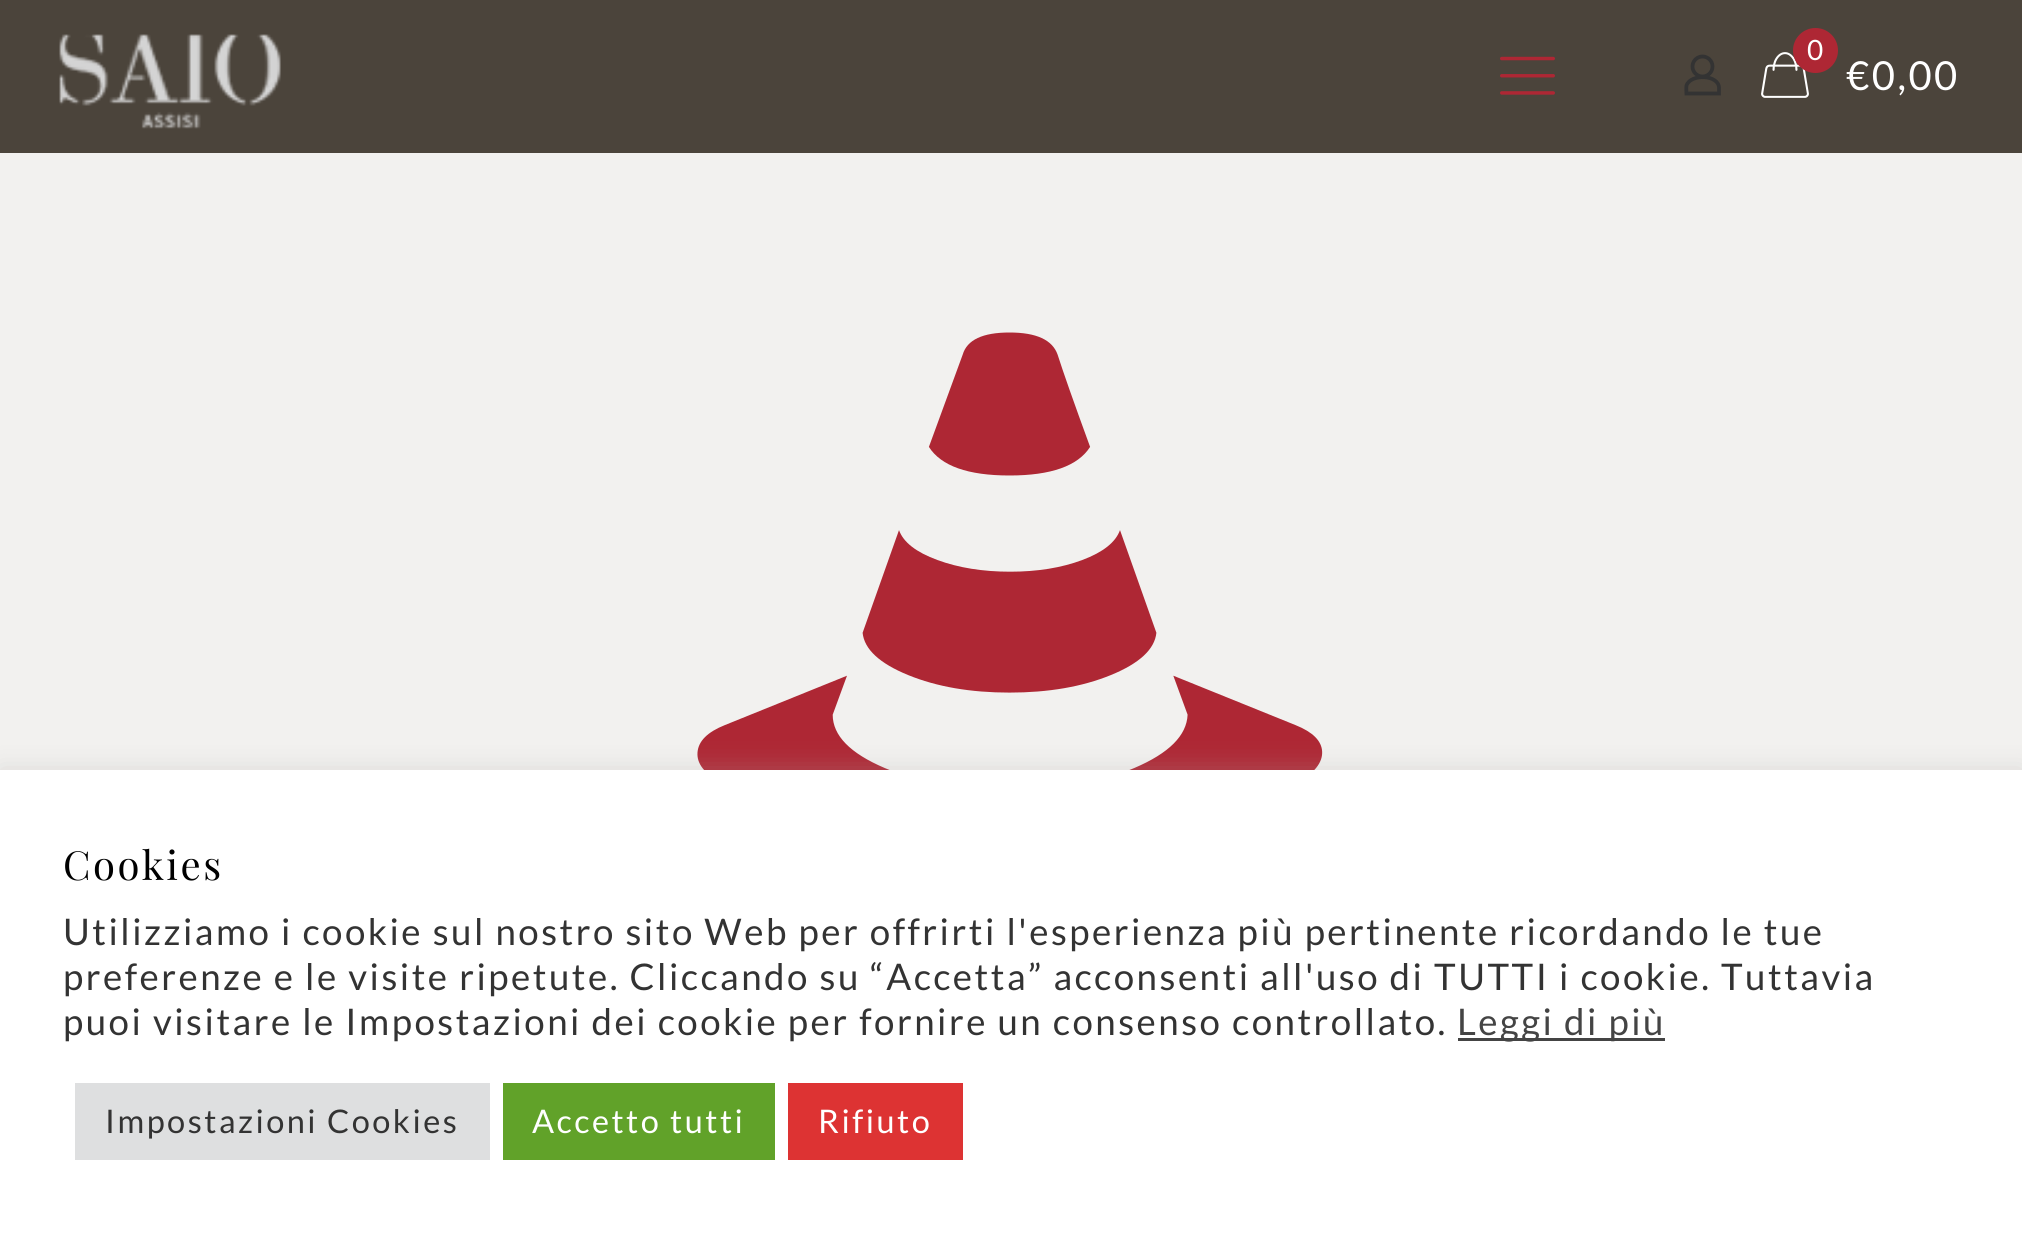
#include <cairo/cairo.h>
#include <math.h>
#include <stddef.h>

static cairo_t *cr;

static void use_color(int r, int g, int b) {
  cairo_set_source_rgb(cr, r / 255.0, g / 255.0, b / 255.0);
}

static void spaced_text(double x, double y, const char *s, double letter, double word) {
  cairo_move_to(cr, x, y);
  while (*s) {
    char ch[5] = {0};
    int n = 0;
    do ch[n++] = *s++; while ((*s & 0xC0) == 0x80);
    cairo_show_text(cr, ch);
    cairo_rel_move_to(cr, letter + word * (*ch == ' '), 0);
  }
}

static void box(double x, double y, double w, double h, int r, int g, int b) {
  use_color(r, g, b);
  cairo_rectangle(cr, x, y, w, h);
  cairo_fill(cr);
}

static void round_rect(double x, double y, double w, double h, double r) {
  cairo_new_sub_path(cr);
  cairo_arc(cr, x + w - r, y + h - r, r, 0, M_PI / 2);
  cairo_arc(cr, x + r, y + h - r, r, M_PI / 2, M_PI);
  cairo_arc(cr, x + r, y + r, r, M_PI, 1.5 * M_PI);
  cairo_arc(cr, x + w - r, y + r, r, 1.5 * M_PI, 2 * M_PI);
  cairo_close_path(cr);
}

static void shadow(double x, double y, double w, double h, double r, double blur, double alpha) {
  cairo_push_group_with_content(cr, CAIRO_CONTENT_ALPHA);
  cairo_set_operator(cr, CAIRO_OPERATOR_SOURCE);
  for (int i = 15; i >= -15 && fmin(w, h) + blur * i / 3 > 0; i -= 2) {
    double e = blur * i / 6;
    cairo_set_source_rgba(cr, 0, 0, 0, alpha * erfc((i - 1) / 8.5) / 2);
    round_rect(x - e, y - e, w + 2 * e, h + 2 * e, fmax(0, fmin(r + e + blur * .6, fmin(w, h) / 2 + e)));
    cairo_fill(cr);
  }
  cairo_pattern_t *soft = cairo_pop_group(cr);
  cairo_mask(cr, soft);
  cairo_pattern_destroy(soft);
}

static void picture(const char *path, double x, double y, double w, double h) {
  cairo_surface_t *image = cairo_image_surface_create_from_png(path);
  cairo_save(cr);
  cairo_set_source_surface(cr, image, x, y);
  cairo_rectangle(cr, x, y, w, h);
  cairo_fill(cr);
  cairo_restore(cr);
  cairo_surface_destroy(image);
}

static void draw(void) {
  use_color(242, 241, 239);
  cairo_paint(cr);
  box(0, 0, 2022, 153, 75, 68, 59);
  picture("img_01.png", 59, 34, 222, 95);
  picture("img_02.png", 1500, 56, 55, 39);
  cairo_arc(cr, 1702.5, 66.5, 10, 0, 2 * M_PI);
  use_color(51, 51, 51);
  cairo_set_line_width(cr, 3.8);
  cairo_stroke(cr);
  cairo_new_path(cr);
  cairo_move_to(cr, 1719, 88);
  cairo_line_to(cr, 1719, 93.5);
  cairo_line_to(cr, 1686.5, 93.5);
  cairo_curve_to(cr, 1686.5, 91, 1686, 88, 1686.5, 85.5);
  cairo_curve_to(cr, 1690.5, 73.5, 1719, 74.5, 1719, 88);
  cairo_close_path(cr);
  cairo_stroke(cr);
  picture("img_03.png", 1761, 52, 48, 46);
  use_color(174, 39, 52);
  cairo_arc(cr, 1815.5, 50.5, 22.5, 0, 2 * M_PI);
  cairo_fill(cr);
  picture("img_04.png", 697, 332, 626, 438);
  use_color(172, 171, 171);
  shadow(0, 768, 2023, 465, 0, 12.5, 0.3);
  box(0, 770, 2022, 463, 255, 255, 255);
  box(1458, 1038, 207, 3, 68, 68, 68);
  box(75, 1083, 415, 77, 222, 223, 224);
  box(503, 1083, 272, 77, 97, 162, 41);
  box(788, 1083, 175, 77, 221, 51, 51);
  cairo_select_font_face(cr, "Lato", CAIRO_FONT_SLANT_NORMAL, CAIRO_FONT_WEIGHT_NORMAL);
  cairo_set_font_size(cr, 28);
  use_color(255, 255, 255);
  spaced_text(1807, 60, "0", 2.5, 0);
  cairo_set_font_size(cr, 40);
  spaced_text(1846, 90, "€0,00", 2.5, 0);
  cairo_select_font_face(cr, "Playfair Display", CAIRO_FONT_SLANT_NORMAL, CAIRO_FONT_WEIGHT_NORMAL);
  use_color(0, 0, 0);
  spaced_text(63, 880, "Cookies", 2.5, 0);
  cairo_select_font_face(cr, "Lato", CAIRO_FONT_SLANT_NORMAL, CAIRO_FONT_WEIGHT_NORMAL);
  cairo_set_font_size(cr, 36.65);
  use_color(51, 51, 51);
  spaced_text(63, 945, "Utilizziamo i cookie sul nostro sito Web per offrirti l'esperienza più pertinente ricordando le tue", 2.5, 0);
  spaced_text(63, 990, "preferenze e le visite ripetute. Cliccando su “Accetta” acconsenti all'uso di TUTTI i cookie. Tuttavia", 2.5, 0);
  spaced_text(63, 1035, "puoi visitare le Impostazioni dei cookie per fornire un consenso controllato.", 2.5, 0);
  use_color(68, 68, 68);
  spaced_text(1457, 1035, "Leggi di più", 2.5, 0);
  cairo_set_font_size(cr, 32.5);
  use_color(51, 51, 51);
  spaced_text(105, 1133, "Impostazioni Cookies", 2.5, 0);
  use_color(255, 255, 255);
  spaced_text(532, 1133, "Accetto tutti", 2.5, 0);
  spaced_text(818, 1133, "Rifiuto", 2.5, 0);
}

int main(void) {
  cairo_surface_t *surface = cairo_image_surface_create(CAIRO_FORMAT_RGB24, 2022, 1233);
  cr = cairo_create(surface);
  cairo_font_options_t *options = cairo_font_options_create();
  cairo_font_options_set_hint_metrics(options, CAIRO_HINT_METRICS_OFF);
  cairo_font_options_set_hint_style(options, CAIRO_HINT_STYLE_NONE);
  cairo_set_font_options(cr, options);
  cairo_set_miter_limit(cr, 4);
  draw();
  cairo_surface_write_to_png(surface, "out.png");
  cairo_font_options_destroy(options);
  cairo_destroy(cr);
  cairo_surface_destroy(surface);
  return 0;
}
